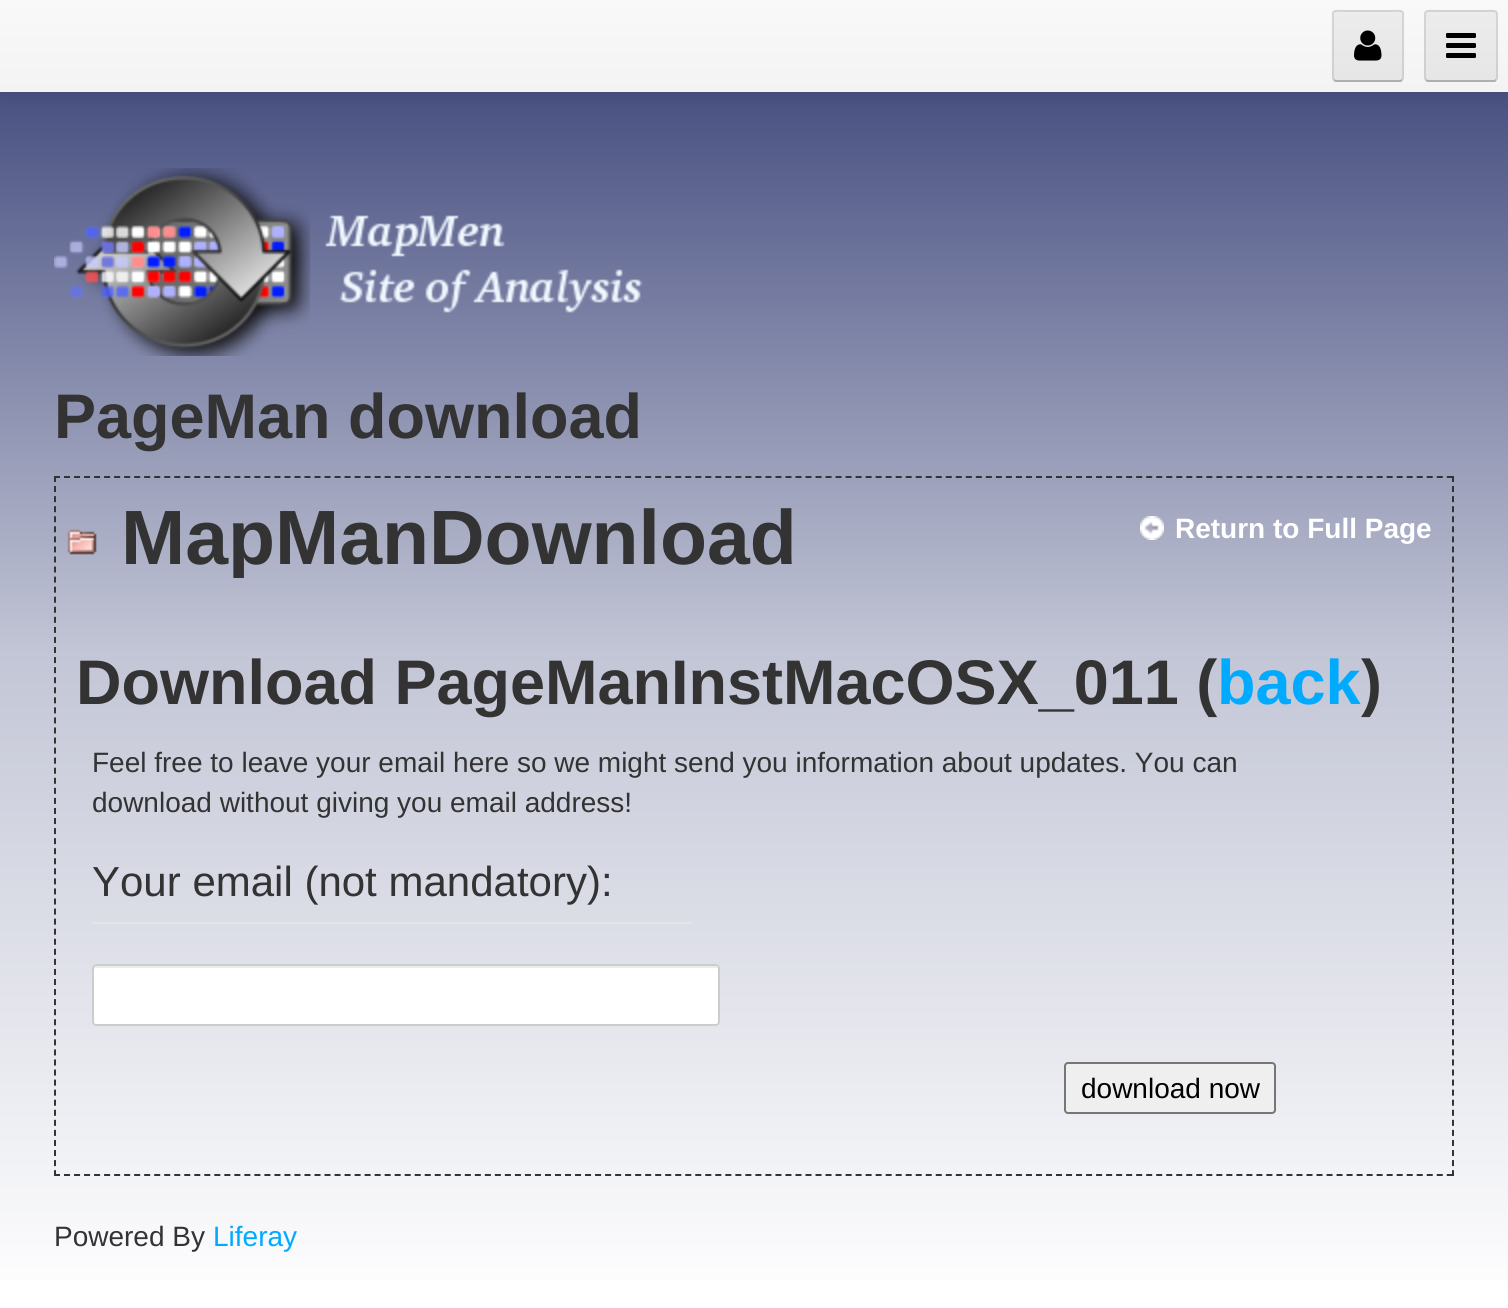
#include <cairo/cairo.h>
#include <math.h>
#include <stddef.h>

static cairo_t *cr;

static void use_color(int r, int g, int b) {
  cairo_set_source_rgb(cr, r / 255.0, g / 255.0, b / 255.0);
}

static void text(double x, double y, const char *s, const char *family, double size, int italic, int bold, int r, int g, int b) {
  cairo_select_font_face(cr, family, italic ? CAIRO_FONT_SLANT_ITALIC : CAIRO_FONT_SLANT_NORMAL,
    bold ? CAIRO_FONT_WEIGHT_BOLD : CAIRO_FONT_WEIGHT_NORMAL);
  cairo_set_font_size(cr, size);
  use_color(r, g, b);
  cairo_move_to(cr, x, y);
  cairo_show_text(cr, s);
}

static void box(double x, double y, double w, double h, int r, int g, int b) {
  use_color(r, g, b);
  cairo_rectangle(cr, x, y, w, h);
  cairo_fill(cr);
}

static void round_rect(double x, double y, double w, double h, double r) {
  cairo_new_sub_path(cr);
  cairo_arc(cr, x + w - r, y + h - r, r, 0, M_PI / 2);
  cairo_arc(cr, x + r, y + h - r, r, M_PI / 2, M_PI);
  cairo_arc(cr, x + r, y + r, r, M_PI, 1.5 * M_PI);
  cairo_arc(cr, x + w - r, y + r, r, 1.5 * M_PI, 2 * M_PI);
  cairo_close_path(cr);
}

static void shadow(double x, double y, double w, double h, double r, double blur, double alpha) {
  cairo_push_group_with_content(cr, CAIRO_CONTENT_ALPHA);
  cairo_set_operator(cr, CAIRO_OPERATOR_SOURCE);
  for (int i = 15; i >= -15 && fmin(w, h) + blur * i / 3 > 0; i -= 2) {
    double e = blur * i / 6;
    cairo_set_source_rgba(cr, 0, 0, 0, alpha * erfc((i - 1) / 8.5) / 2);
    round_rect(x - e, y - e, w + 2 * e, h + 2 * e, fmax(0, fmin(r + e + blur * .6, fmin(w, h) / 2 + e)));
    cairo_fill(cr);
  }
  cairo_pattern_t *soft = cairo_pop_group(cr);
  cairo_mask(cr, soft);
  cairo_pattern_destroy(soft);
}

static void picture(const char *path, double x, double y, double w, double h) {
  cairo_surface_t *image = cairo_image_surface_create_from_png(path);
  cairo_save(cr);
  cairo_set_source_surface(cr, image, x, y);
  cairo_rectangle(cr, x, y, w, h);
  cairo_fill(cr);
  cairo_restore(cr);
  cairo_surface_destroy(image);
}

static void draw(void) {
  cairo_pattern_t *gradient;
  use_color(255, 255, 255);
  cairo_paint(cr);
  gradient = cairo_pattern_create_linear(754, 0, 754, 1308);
  cairo_pattern_add_color_stop_rgba(gradient, 0, 0.208, 0.243, 0.455, 1);
  cairo_pattern_add_color_stop_rgba(gradient, 0.5, 0.765, 0.776, 0.839, 1);
  cairo_pattern_add_color_stop_rgba(gradient, 1, 1, 1, 1, 1);
  cairo_set_source(cr, gradient);
  cairo_pattern_destroy(gradient);
  cairo_rectangle(cr, 0, 92, 1508, 1189);
  cairo_fill(cr);
  use_color(0, 0, 0);
  shadow(0, 2, 1508, 92, 0, 10, 0.1);
  gradient = cairo_pattern_create_linear(754, 0, 754, 92);
  cairo_pattern_add_color_stop_rgba(gradient, 0, 0.976, 0.976, 0.976, 1);
  cairo_pattern_add_color_stop_rgba(gradient, 1, 0.953, 0.953, 0.953, 1);
  cairo_set_source(cr, gradient);
  cairo_pattern_destroy(gradient);
  cairo_rectangle(cr, 0, 0, 1508, 92);
  cairo_fill(cr);
  use_color(233, 233, 233);
  round_rect(1332, 10, 72, 72, 4);
  cairo_fill(cr);
  cairo_save(cr);
  round_rect(1332, 10, 72, 72, 4);
  cairo_clip(cr);
  gradient = cairo_pattern_create_linear(1368, 12, 1368, 80);
  cairo_pattern_add_color_stop_rgba(gradient, 0, 0.925, 0.925, 0.925, 1);
  cairo_pattern_add_color_stop_rgba(gradient, 1, 0.902, 0.902, 0.902, 1);
  cairo_set_source(cr, gradient);
  cairo_pattern_destroy(gradient);
  cairo_rectangle(cr, 1332, 12, 72, 68);
  cairo_fill(cr);
  cairo_restore(cr);
  cairo_new_path(cr);
  cairo_move_to(cr, 1402, 80);
  cairo_line_to(cr, 1400.5, 81);
  cairo_line_to(cr, 1335.5, 81);
  cairo_line_to(cr, 1334, 80);
  cairo_set_source_rgba(cr, 0, 0, 0, 0.25);
  cairo_stroke(cr);
  cairo_new_path(cr);
  cairo_move_to(cr, 1334, 80);
  cairo_line_to(cr, 1333, 78);
  cairo_line_to(cr, 1333, 24.5);
  cairo_curve_to(cr, 1333, 8.5, 1330.5, 11, 1346.5, 11);
  cairo_line_to(cr, 1389.5, 11);
  cairo_curve_to(cr, 1405.5, 11, 1403, 8.5, 1403, 24.5);
  cairo_line_to(cr, 1403, 78);
  cairo_line_to(cr, 1402, 80);
  cairo_set_source_rgba(cr, 0, 0, 0, 0.1);
  cairo_stroke(cr);
  picture("img_01.png", 1354, 30, 28, 31);
  use_color(233, 233, 233);
  round_rect(1424, 10, 74, 72, 4);
  cairo_fill(cr);
  cairo_save(cr);
  round_rect(1424, 10, 74, 72, 4);
  cairo_clip(cr);
  gradient = cairo_pattern_create_linear(1461, 12, 1461, 80);
  cairo_pattern_add_color_stop_rgba(gradient, 0, 0.925, 0.925, 0.925, 1);
  cairo_pattern_add_color_stop_rgba(gradient, 1, 0.902, 0.902, 0.902, 1);
  cairo_set_source(cr, gradient);
  cairo_pattern_destroy(gradient);
  cairo_rectangle(cr, 1424, 12, 74, 68);
  cairo_fill(cr);
  cairo_restore(cr);
  cairo_new_path(cr);
  cairo_move_to(cr, 1496, 80);
  cairo_line_to(cr, 1494.5, 81);
  cairo_line_to(cr, 1427.5, 81);
  cairo_line_to(cr, 1426, 80);
  cairo_set_source_rgba(cr, 0, 0, 0, 0.25);
  cairo_stroke(cr);
  cairo_new_path(cr);
  cairo_move_to(cr, 1426, 80);
  cairo_line_to(cr, 1425, 78);
  cairo_line_to(cr, 1425, 24.5);
  cairo_curve_to(cr, 1425, 8.5, 1423, 11, 1439, 11);
  cairo_line_to(cr, 1483, 11);
  cairo_curve_to(cr, 1499, 11, 1497, 8.5, 1497, 24.5);
  cairo_line_to(cr, 1497, 78);
  cairo_line_to(cr, 1496, 80);
  cairo_set_source_rgba(cr, 0, 0, 0, 0.1);
  cairo_stroke(cr);
  picture("img_02.png", 1446, 33, 30, 25);
  picture("img_03.png", 54, 168, 589, 188);
  cairo_new_path(cr);
  cairo_move_to(cr, 54, 477);
  cairo_line_to(cr, 1454, 477);
  use_color(51, 51, 51);
  cairo_set_dash(cr, (double[]){6, 4.02}, 2, 0);
  cairo_stroke(cr);
  cairo_new_path(cr);
  cairo_move_to(cr, 1453, 476);
  cairo_line_to(cr, 1453, 1176);
  cairo_set_dash(cr, (double[]){6, 4.06}, 2, 0);
  cairo_stroke(cr);
  cairo_new_path(cr);
  cairo_move_to(cr, 54, 1175);
  cairo_line_to(cr, 1454, 1175);
  cairo_set_dash(cr, (double[]){6, 4.02}, 2, 0);
  cairo_stroke(cr);
  cairo_new_path(cr);
  cairo_move_to(cr, 55, 476);
  cairo_line_to(cr, 55, 1176);
  cairo_set_dash(cr, (double[]){6, 4.06}, 2, 0);
  cairo_stroke(cr);
  picture("img_04.png", 67, 529, 30, 26);
  picture("img_05.png", 1140, 516, 24, 24);
  box(92, 922, 600, 2, 229, 229, 229);
  use_color(255, 255, 255);
  round_rect(92, 964, 628, 62, 4);
  cairo_fill(cr);
  use_color(236, 236, 236);
  cairo_new_path(cr);
  cairo_move_to(cr, 96, 968);
  cairo_line_to(cr, 716, 968);
  cairo_curve_to(cr, 717, 968, 718, 969, 718, 970);
  cairo_curve_to(cr, 718, 968, 718, 966, 716, 966);
  cairo_line_to(cr, 96, 966);
  cairo_line_to(cr, 94, 967);
  cairo_line_to(cr, 94, 970);
  cairo_curve_to(cr, 94, 969, 95, 968, 96, 968);
  cairo_close_path(cr);
  cairo_fill(cr);
  round_rect(93, 965, 626, 60, 3);
  use_color(204, 204, 204);
  cairo_set_dash(cr, NULL, 0, 0);
  cairo_stroke(cr);
  use_color(239, 239, 239);
  round_rect(1065, 1063, 210, 50, 3);
  cairo_fill_preserve(cr);
  use_color(118, 118, 118);
  cairo_stroke(cr);
  text(54, 438, "PageMan download", "Liberation Sans", 63, 0, 1, 51, 51, 51);
  cairo_save(cr);
  cairo_rectangle(cr, 122, 498, 676, 80);
  cairo_clip(cr);
  text(121, 564, "MapManDownload", "Liberation Sans", 77, 0, 1, 51, 51, 51);
  cairo_restore(cr);
  text(1175, 538, "Return to Full Page", "Liberation Sans", 28, 0, 1, 255, 255, 255);
  text(76, 704, "Download PageManInstMacOSX_011 (", "Liberation Sans", 63, 0, 1, 51, 51, 51);
  text(1217, 704, "back", "Liberation Sans", 63, 0, 1, 0, 170, 255);
  text(1361, 704, ")", "Liberation Sans", 63, 0, 1, 51, 51, 51);
  text(92, 772, "Feel free to leave your email here so we might send you information about updates. You can", "Liberation Sans", 28, 0, 0, 51, 51, 51);
  text(92, 812, "download without giving you email address!", "Liberation Sans", 28, 0, 0, 51, 51, 51);
  text(92, 896, "Your email (not mandatory):", "Liberation Sans", 42, 0, 0, 51, 51, 51);
  text(1081, 1098, "download now", "Liberation Sans", 28, 0, 0, 0, 0, 0);
  text(54, 1246, "Powered By", "Liberation Sans", 28, 0, 0, 51, 51, 51);
  text(213, 1246, "Liferay", "Liberation Sans", 28, 0, 0, 0, 170, 255);
}

int main(void) {
  cairo_surface_t *surface = cairo_image_surface_create(CAIRO_FORMAT_RGB24, 1508, 1308);
  cr = cairo_create(surface);
  cairo_font_options_t *options = cairo_font_options_create();
  cairo_font_options_set_hint_metrics(options, CAIRO_HINT_METRICS_OFF);
  cairo_font_options_set_hint_style(options, CAIRO_HINT_STYLE_NONE);
  cairo_set_font_options(cr, options);
  cairo_set_miter_limit(cr, 4);
  draw();
  cairo_surface_write_to_png(surface, "out.png");
  cairo_font_options_destroy(options);
  cairo_destroy(cr);
  cairo_surface_destroy(surface);
  return 0;
}
